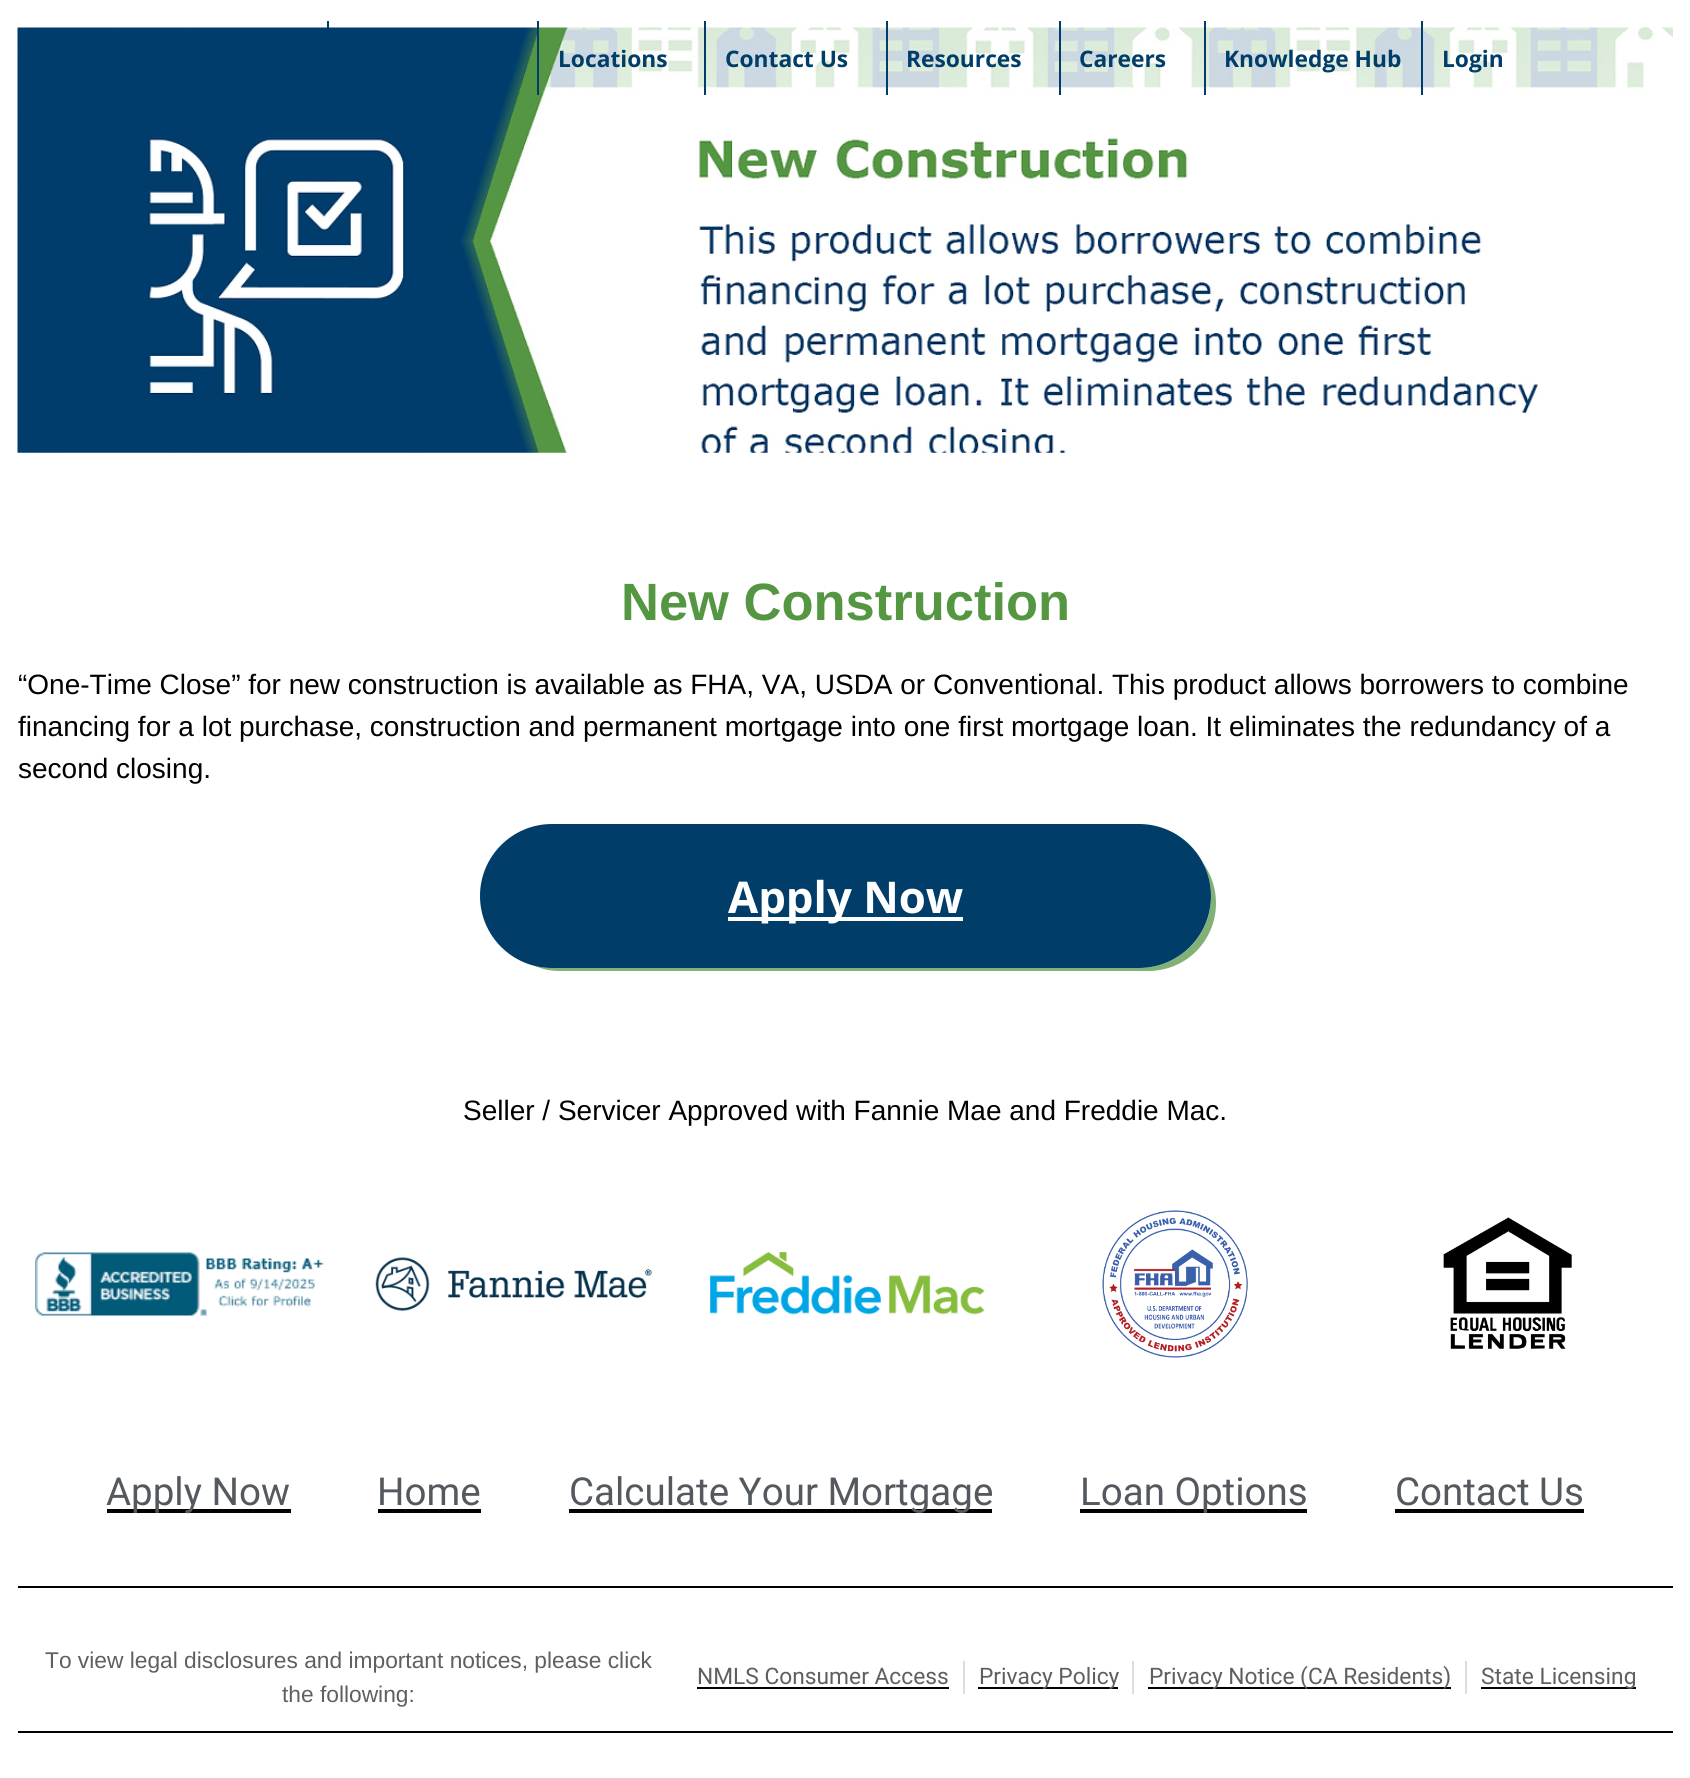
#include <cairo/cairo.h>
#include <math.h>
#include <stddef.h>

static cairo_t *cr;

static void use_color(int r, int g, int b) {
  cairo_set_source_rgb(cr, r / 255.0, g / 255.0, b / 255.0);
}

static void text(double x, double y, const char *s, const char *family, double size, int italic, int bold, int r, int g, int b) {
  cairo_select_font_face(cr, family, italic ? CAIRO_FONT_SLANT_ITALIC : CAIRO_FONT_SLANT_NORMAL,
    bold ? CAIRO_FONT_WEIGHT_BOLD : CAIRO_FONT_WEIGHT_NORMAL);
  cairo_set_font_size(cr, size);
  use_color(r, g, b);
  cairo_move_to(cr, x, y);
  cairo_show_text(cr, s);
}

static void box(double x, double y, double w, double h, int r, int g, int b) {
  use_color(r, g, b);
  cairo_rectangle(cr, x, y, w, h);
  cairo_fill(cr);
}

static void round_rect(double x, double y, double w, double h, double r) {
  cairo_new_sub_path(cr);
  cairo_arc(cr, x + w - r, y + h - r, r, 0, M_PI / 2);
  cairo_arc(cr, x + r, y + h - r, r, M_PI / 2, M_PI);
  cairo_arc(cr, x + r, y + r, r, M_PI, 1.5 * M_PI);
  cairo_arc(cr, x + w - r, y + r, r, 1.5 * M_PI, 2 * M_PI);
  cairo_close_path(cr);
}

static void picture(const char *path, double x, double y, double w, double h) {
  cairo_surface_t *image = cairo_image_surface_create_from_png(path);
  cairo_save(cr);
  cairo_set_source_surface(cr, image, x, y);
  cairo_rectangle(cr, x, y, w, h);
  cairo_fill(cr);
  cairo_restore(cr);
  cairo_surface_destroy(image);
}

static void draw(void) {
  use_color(255, 255, 255);
  cairo_paint(cr);
  picture("img_01.png", 17, 27, 1656, 426);
  box(327, 21, 2, 74, 0, 62, 105);
  box(537, 21, 2, 74, 0, 62, 105);
  box(704, 21, 2, 74, 0, 62, 105);
  box(886, 21, 2, 74, 0, 62, 105);
  box(1059, 21, 2, 74, 0, 62, 105);
  box(1204, 21, 2, 74, 0, 62, 105);
  box(1421, 21, 2, 74, 0, 62, 105);
  use_color(129, 177, 116);
  cairo_new_path(cr);
  cairo_move_to(cr, 533, 965);
  cairo_curve_to(cr, 541, 969, 550, 971, 560, 971);
  cairo_line_to(cr, 1148, 971);
  cairo_curve_to(cr, 1186, 971, 1216, 941, 1216, 903);
  cairo_curve_to(cr, 1216, 888, 1211, 874, 1203, 863);
  cairo_curve_to(cr, 1208, 873, 1211, 884, 1211, 896);
  cairo_curve_to(cr, 1211, 936, 1179, 968, 1139, 968);
  cairo_line_to(cr, 551, 968);
  cairo_curve_to(cr, 545, 968, 539, 967, 533, 965);
  cairo_close_path(cr);
  cairo_fill(cr);
  use_color(0, 62, 105);
  round_rect(480, 824, 731, 144, 72);
  cairo_fill(cr);
  box(728, 917, 235, 4, 255, 255, 255);
  picture("img_02.png", 35, 1252, 289, 64);
  picture("img_03.png", 375, 1257, 277, 55);
  picture("img_04.png", 710, 1252, 275, 63);
  picture("img_05.png", 1102, 1210, 146, 148);
  picture("img_06.png", 1443, 1217, 129, 132);
  box(107, 1509, 184, 4, 0, 0, 0);
  box(378, 1509, 103, 4, 0, 0, 0);
  box(569, 1509, 423, 4, 0, 0, 0);
  box(1080, 1509, 227, 4, 0, 0, 0);
  box(1395, 1509, 189, 4, 0, 0, 0);
  box(18, 1586, 1655, 2, 0, 0, 0);
  box(697, 1687, 252, 2, 0, 0, 0);
  box(963, 1661, 2, 33, 221, 221, 221);
  box(978, 1687, 140, 2, 0, 0, 0);
  box(1132, 1661, 2, 33, 221, 221, 221);
  box(1148, 1687, 303, 2, 0, 0, 0);
  box(1465, 1661, 2, 33, 221, 221, 221);
  box(1481, 1687, 155, 2, 0, 0, 0);
  box(18, 1731, 1655, 2, 0, 0, 0);
  text(558, 67, "Locations", "Open Sans", 22.75, 0, 1, 0, 62, 105);
  text(725, 67, "Contact Us", "Open Sans", 22.75, 0, 1, 0, 62, 105);
  text(906, 67, "Resources", "Open Sans", 22.75, 0, 1, 0, 62, 105);
  text(1079, 67, "Careers", "Open Sans", 22.75, 0, 1, 0, 62, 105);
  text(1224, 67, "Knowledge Hub", "Open Sans", 22.75, 0, 1, 0, 62, 105);
  text(1442, 67, "Login", "Open Sans", 22.75, 0, 1, 0, 62, 105);
  text(621, 620, "New Construction", "Liberation Sans", 52.5, 0, 1, 85, 150, 67);
  text(18, 694, "“One-Time Close” for new construction is available as FHA, VA, USDA or Conventional. This product allows borrowers to combine", "Liberation Sans", 28, 0, 0, 0, 0, 0);
  text(18, 736, "financing for a lot purchase, construction and permanent mortgage into one first mortgage loan. It eliminates the redundancy of a", "Liberation Sans", 28, 0, 0, 0, 0, 0);
  text(18, 778, "second closing.", "Liberation Sans", 28, 0, 0, 0, 0, 0);
  text(728, 913, "Apply Now", "Open Sans", 43.75, 0, 1, 255, 255, 255);
  text(463, 1120, "Seller / Servicer Approved with Fannie Mae and Freddie Mac.", "Liberation Sans", 28, 0, 0, 0, 0, 0);
  text(106, 1505, "Apply Now", "Roboto", 38.5, 0, 0, 84, 89, 95);
  text(377, 1505, "Home", "Roboto", 38.5, 0, 0, 84, 89, 95);
  text(569, 1505, "Calculate Your Mortgage", "Roboto", 38.5, 0, 0, 84, 89, 95);
  text(1080, 1505, "Loan Options", "Roboto", 38.5, 0, 0, 84, 89, 95);
  text(1395, 1505, "Contact Us", "Roboto", 38.5, 0, 0, 84, 89, 95);
  text(45, 1668, "To view legal disclosures and important notices, please click", "Liberation Sans", 22.75, 0, 0, 95, 94, 97);
  text(282, 1702, "the following:", "Liberation Sans", 22.75, 0, 0, 95, 94, 97);
  text(697, 1684, "NMLS Consumer Access", "Roboto", 22.75, 0, 0, 95, 94, 97);
  text(979, 1684, "Privacy Policy", "Roboto", 22.75, 0, 0, 95, 94, 97);
  text(1149, 1684, "Privacy Notice (CA Residents)", "Roboto", 22.75, 0, 0, 95, 94, 97);
  text(1481, 1684, "State Licensing", "Roboto", 22.75, 0, 0, 95, 94, 97);
}

int main(void) {
  cairo_surface_t *surface = cairo_image_surface_create(CAIRO_FORMAT_RGB24, 1690, 1778);
  cr = cairo_create(surface);
  cairo_font_options_t *options = cairo_font_options_create();
  cairo_font_options_set_hint_metrics(options, CAIRO_HINT_METRICS_OFF);
  cairo_font_options_set_hint_style(options, CAIRO_HINT_STYLE_NONE);
  cairo_set_font_options(cr, options);
  cairo_set_miter_limit(cr, 4);
  draw();
  cairo_surface_write_to_png(surface, "out.png");
  cairo_font_options_destroy(options);
  cairo_destroy(cr);
  cairo_surface_destroy(surface);
  return 0;
}
